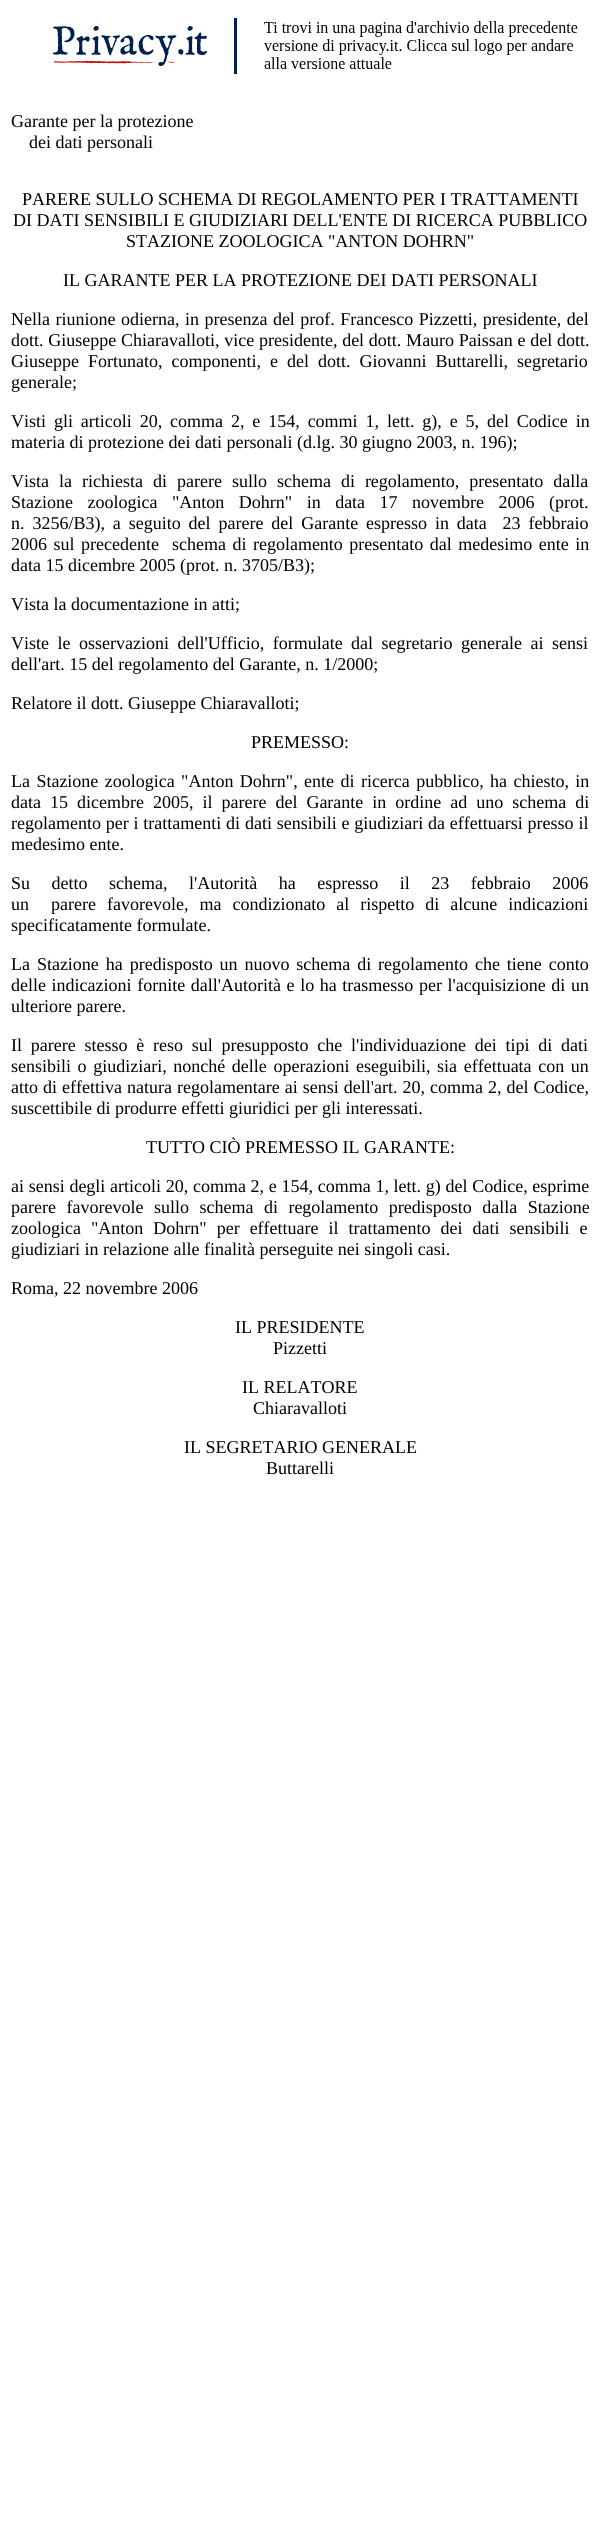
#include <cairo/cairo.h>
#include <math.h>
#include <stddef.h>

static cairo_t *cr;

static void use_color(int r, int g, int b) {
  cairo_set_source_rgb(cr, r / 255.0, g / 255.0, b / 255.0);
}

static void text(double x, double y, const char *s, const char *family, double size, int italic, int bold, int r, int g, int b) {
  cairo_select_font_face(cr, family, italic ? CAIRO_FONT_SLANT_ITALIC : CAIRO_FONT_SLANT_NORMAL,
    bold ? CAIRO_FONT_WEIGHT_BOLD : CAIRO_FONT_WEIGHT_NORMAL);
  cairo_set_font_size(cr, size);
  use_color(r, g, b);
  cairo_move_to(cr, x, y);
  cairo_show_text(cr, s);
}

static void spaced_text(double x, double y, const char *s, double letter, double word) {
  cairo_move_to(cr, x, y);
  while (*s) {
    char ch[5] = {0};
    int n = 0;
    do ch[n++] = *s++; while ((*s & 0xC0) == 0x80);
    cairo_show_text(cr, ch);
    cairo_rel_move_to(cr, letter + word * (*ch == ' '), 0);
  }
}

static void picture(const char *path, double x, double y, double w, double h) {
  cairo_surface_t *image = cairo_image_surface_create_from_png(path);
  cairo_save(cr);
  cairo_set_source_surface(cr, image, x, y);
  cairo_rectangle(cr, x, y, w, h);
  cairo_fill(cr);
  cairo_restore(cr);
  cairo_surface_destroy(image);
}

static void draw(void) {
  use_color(255, 255, 255);
  cairo_paint(cr);
  picture("img_01.png", 53, 18, 525, 56);
  text(11, 127, "Garante per la protezione", "Liberation Serif", 18, 0, 0, 0, 0, 0);
  text(29, 148, "dei dati personali", "Liberation Serif", 18, 0, 0, 0, 0, 0);
  text(22, 205, "PARERE SULLO SCHEMA DI REGOLAMENTO PER I TRATTAMENTI", "Liberation Serif", 18, 0, 0, 0, 0, 0);
  text(13, 226, "DI DATI SENSIBILI E GIUDIZIARI DELL'ENTE DI RICERCA PUBBLICO", "Liberation Serif", 18, 0, 0, 0, 0, 0);
  text(126, 247, "STAZIONE ZOOLOGICA \"ANTON DOHRN\"", "Liberation Serif", 18, 0, 0, 0, 0, 0);
  text(63, 286, "IL GARANTE PER LA PROTEZIONE DEI DATI PERSONALI", "Liberation Serif", 18, 0, 0, 0, 0, 0);
  spaced_text(11, 325, "Nella riunione odierna, in presenza del prof. Francesco Pizzetti, presidente, del", 0, 1);
  spaced_text(11, 346, "dott. Giuseppe Chiaravalloti, vice presidente, del dott. Mauro Paissan e del dott.", 0, 0.25);
  spaced_text(11, 367, "Giuseppe Fortunato, componenti, e del dott. Giovanni Buttarelli, segretario", 0, 4.5);
  text(11, 388, "generale;", "Liberation Serif", 18, 0, 0, 0, 0, 0);
  spaced_text(11, 427, "Visti gli articoli 20, comma 2, e 154, commi 1, lett. g), e 5, del Codice in", 0, 3.4);
  text(11, 448, "materia di protezione dei dati personali (d.lg. 30 giugno 2003, n. 196);", "Liberation Serif", 18, 0, 0, 0, 0, 0);
  spaced_text(11, 487, "Vista la richiesta di parere sullo schema di regolamento, presentato dalla", 0, 5.5);
  spaced_text(11, 508, "Stazione zoologica \"Anton Dohrn\" in data 17 novembre 2006 (prot.", 0, 10);
  spaced_text(11, 529, "n. 3256/B3), a seguito del parere del Garante espresso in data  23 febbraio", 0, 3.4);
  spaced_text(11, 550, "2006 sul precedente  schema di regolamento presentato dal medesimo ente in", 0, 2);
  text(11, 571, "data 15 dicembre 2005 (prot. n. 3705/B3);", "Liberation Serif", 18, 0, 0, 0, 0, 0);
  text(11, 610, "Vista la documentazione in atti;", "Liberation Serif", 18, 0, 0, 0, 0, 0);
  spaced_text(11, 649, "Viste le osservazioni dell'Ufficio, formulate dal segretario generale ai sensi", 0, 4);
  text(11, 670, "dell'art. 15 del regolamento del Garante, n. 1/2000;", "Liberation Serif", 18, 0, 0, 0, 0, 0);
  text(11, 709, "Relatore il dott. Giuseppe Chiaravalloti;", "Liberation Serif", 18, 0, 0, 0, 0, 0);
  text(251, 748, "PREMESSO:", "Liberation Serif", 18, 0, 0, 0, 0, 0);
  spaced_text(11, 787, "La Stazione zoologica \"Anton Dohrn\", ente di ricerca pubblico, ha chiesto, in", 0, 1.9);
  spaced_text(11, 808, "data 15 dicembre 2005, il parere del Garante in ordine ad uno schema di", 0, 4.5);
  spaced_text(11, 829, "regolamento per i trattamenti di dati sensibili e giudiziari da effettuarsi presso il", 0, 0.3);
  text(11, 850, "medesimo ente.", "Liberation Serif", 18, 0, 0, 0, 0, 0);
  spaced_text(11, 889, "Su detto schema, l'Autorità ha espresso il 23 febbraio 2006", 0, 17);
  spaced_text(11, 910, "un  parere favorevole, ma condizionato al rispetto di alcune indicazioni", 0, 6.5);
  text(11, 931, "specificatamente formulate.", "Liberation Serif", 18, 0, 0, 0, 0, 0);
  spaced_text(11, 970, "La Stazione ha predisposto un nuovo schema di regolamento che tiene conto", 0, 2.4);
  spaced_text(11, 991, "delle indicazioni fornite dall'Autorità e lo ha trasmesso per l'acquisizione di un", 0, 1.1);
  text(11, 1012, "ulteriore parere.", "Liberation Serif", 18, 0, 0, 0, 0, 0);
  spaced_text(11, 1051, "Il parere stesso è reso sul presupposto che l'individuazione dei tipi di dati", 0, 4.25);
  spaced_text(11, 1072, "sensibili o giudiziari, nonché delle operazioni eseguibili, sia effettuata con un", 0, 2.1);
  spaced_text(11, 1093, "atto di effettiva natura regolamentare ai sensi dell'art. 20, comma 2, del Codice,", 0, 0.5);
  text(11, 1114, "suscettibile di produrre effetti giuridici per gli interessati.", "Liberation Serif", 18, 0, 0, 0, 0, 0);
  text(146, 1153, "TUTTO CIÒ PREMESSO IL GARANTE:", "Liberation Serif", 18, 0, 0, 0, 0, 0);
  spaced_text(11, 1192, "ai sensi degli articoli 20, comma 2, e 154, comma 1, lett. g) del Codice, esprime", 0, 0.2);
  spaced_text(11, 1213, "parere favorevole sullo schema di regolamento predisposto dalla Stazione", 0, 6);
  spaced_text(11, 1234, "zoologica \"Anton Dohrn\" per effettuare il trattamento dei dati sensibili e", 0, 5.5);
  text(11, 1255, "giudiziari in relazione alle finalità perseguite nei singoli casi.", "Liberation Serif", 18, 0, 0, 0, 0, 0);
  text(11, 1294, "Roma, 22 novembre 2006", "Liberation Serif", 18, 0, 0, 0, 0, 0);
  text(235, 1333, "IL PRESIDENTE", "Liberation Serif", 18, 0, 0, 0, 0, 0);
  text(273, 1354, "Pizzetti", "Liberation Serif", 18, 0, 0, 0, 0, 0);
  text(242, 1393, "IL RELATORE", "Liberation Serif", 18, 0, 0, 0, 0, 0);
  text(253, 1414, "Chiaravalloti", "Liberation Serif", 18, 0, 0, 0, 0, 0);
  text(184, 1453, "IL SEGRETARIO GENERALE", "Liberation Serif", 18, 0, 0, 0, 0, 0);
  text(266, 1474, "Buttarelli", "Liberation Serif", 18, 0, 0, 0, 0, 0);
}

int main(void) {
  cairo_surface_t *surface = cairo_image_surface_create(CAIRO_FORMAT_RGB24, 600, 2544);
  cr = cairo_create(surface);
  cairo_font_options_t *options = cairo_font_options_create();
  cairo_font_options_set_hint_metrics(options, CAIRO_HINT_METRICS_OFF);
  cairo_font_options_set_hint_style(options, CAIRO_HINT_STYLE_NONE);
  cairo_set_font_options(cr, options);
  cairo_set_miter_limit(cr, 4);
  draw();
  cairo_surface_write_to_png(surface, "out.png");
  cairo_font_options_destroy(options);
  cairo_destroy(cr);
  cairo_surface_destroy(surface);
  return 0;
}
